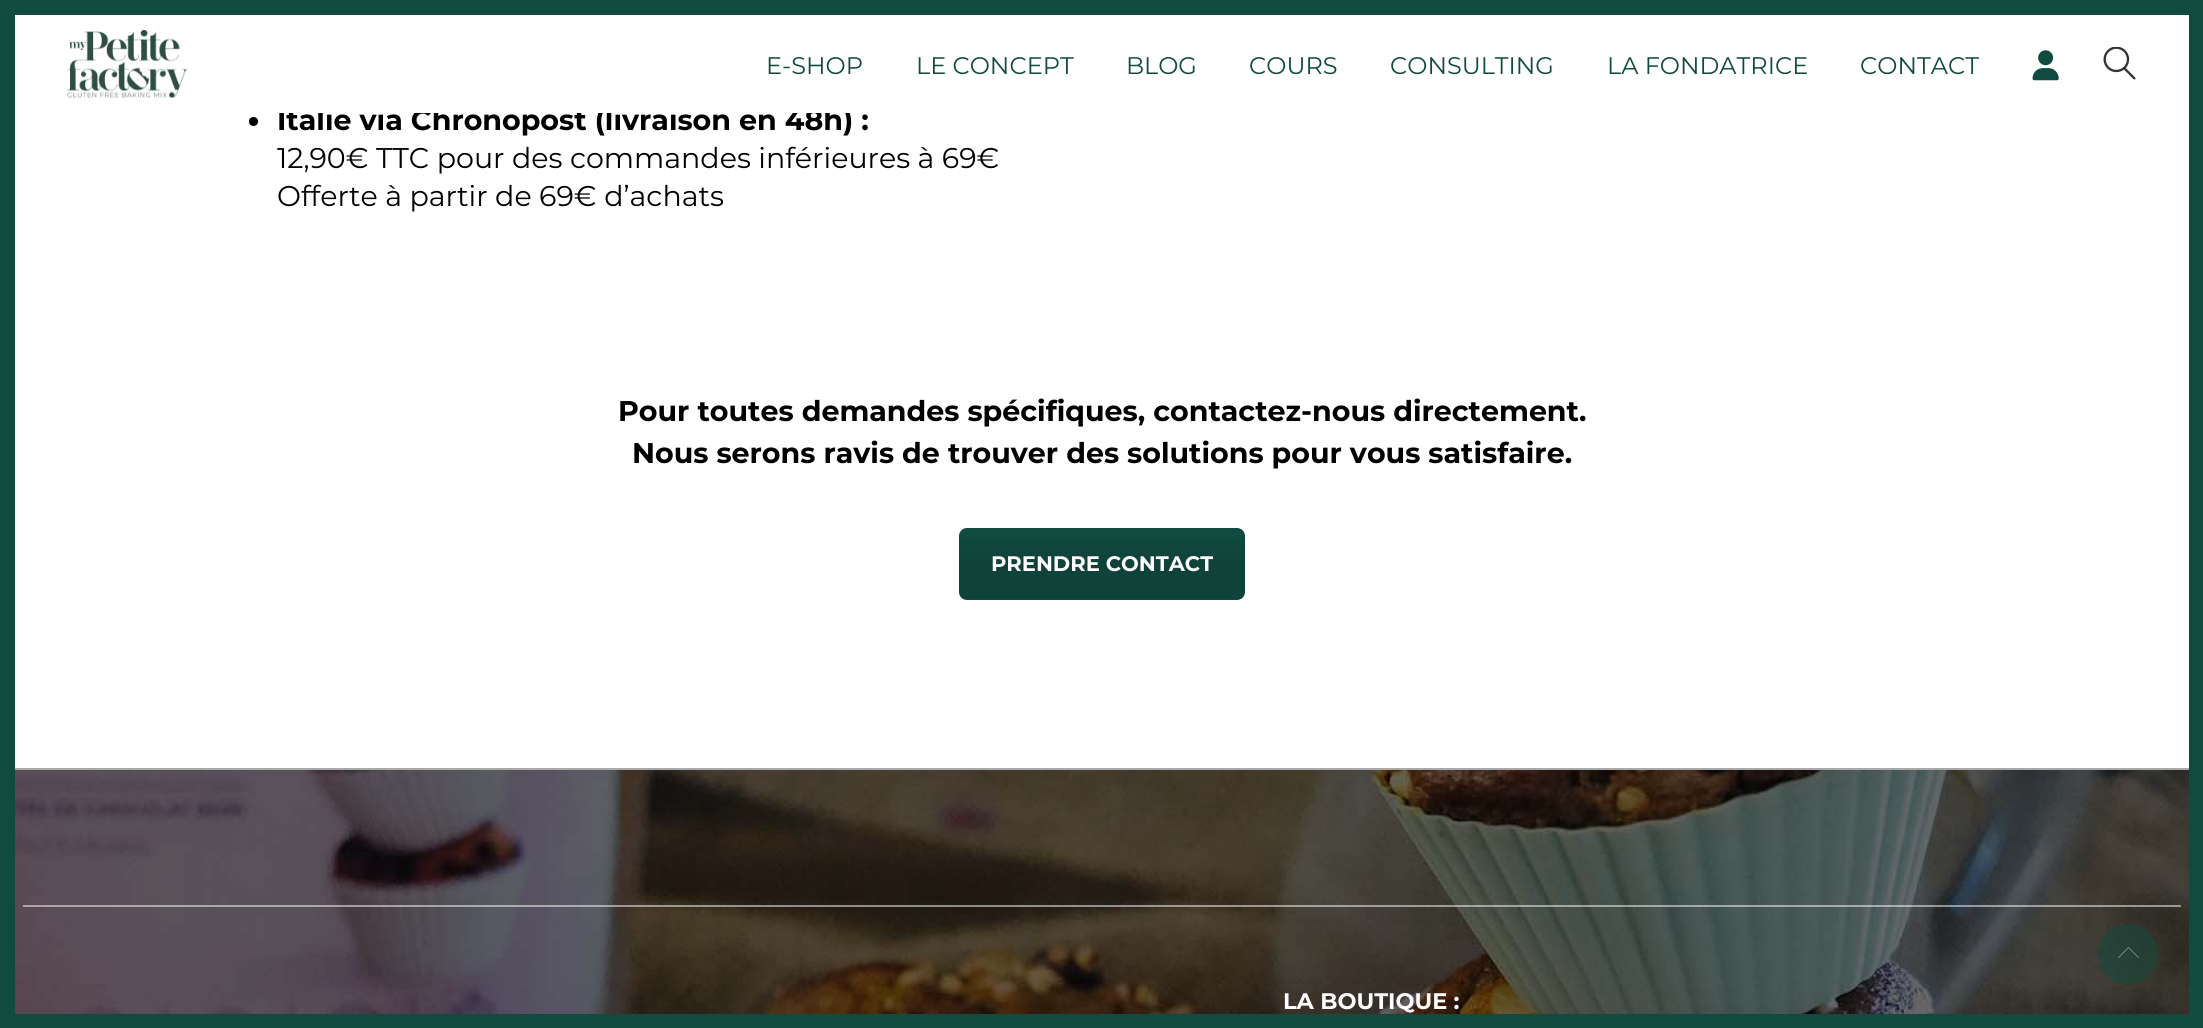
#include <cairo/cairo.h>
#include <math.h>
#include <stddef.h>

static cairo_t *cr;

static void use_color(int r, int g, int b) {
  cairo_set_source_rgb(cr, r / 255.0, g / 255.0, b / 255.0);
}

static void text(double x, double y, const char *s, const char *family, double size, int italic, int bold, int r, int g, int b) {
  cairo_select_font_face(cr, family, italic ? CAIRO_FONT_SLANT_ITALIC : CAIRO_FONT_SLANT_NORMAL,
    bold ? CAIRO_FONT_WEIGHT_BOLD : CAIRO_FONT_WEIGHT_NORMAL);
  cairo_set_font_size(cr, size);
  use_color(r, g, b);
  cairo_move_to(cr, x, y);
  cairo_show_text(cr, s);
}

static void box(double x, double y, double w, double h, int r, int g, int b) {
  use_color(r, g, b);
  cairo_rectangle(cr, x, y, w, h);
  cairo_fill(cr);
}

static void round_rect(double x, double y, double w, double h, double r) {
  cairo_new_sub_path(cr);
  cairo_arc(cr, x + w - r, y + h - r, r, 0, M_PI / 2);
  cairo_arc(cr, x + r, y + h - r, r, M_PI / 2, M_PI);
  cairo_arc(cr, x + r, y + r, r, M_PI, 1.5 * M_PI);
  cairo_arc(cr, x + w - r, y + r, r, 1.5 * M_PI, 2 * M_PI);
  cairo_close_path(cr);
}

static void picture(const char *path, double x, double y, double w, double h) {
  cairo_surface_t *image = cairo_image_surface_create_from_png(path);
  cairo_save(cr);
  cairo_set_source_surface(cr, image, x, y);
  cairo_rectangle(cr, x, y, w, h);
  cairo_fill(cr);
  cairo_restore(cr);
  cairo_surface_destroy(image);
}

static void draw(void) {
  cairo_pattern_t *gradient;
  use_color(255, 255, 255);
  cairo_paint(cr);
  box(0, 0, 15, 1028, 17, 74, 63);
  box(15, 0, 2174, 15, 17, 74, 63);
  box(2189, 0, 14, 1014, 17, 74, 63);
  box(15, 1014, 2188, 14, 17, 74, 63);
  picture("img_01.png", 67, 30, 121, 68);
  picture("img_02.png", 2032, 50, 27, 31);
  picture("img_03.png", 2103, 47, 33, 33);
  use_color(0, 0, 0);
  cairo_arc(cr, 253.5, 121.5, 4.5, 0, 2 * M_PI);
  cairo_fill(cr);
  use_color(17, 74, 63);
  round_rect(959, 528, 286, 72, 8);
  cairo_fill(cr);
  cairo_save(cr);
  round_rect(959, 528, 286, 72, 8);
  cairo_clip(cr);
  gradient = cairo_pattern_create_linear(1244, 530, 1244, 599);
  cairo_pattern_add_color_stop_rgba(gradient, 0, 0, 0, 0, 0);
  cairo_pattern_add_color_stop_rgba(gradient, 0.5, 0, 0, 0, 0.1);
  cairo_pattern_add_color_stop_rgba(gradient, 1, 0, 0, 0, 0.1);
  cairo_set_source(cr, gradient);
  cairo_pattern_destroy(gradient);
  cairo_rectangle(cr, 959, 537, 286, 62);
  cairo_fill(cr);
  cairo_restore(cr);
  picture("img_04.png", 15, 770, 2174, 244);
  cairo_set_source_rgba(cr, 0.067, 0.29, 0.247, 0.5);
  cairo_new_path(cr);
  cairo_move_to(cr, 2128, 984);
  cairo_curve_to(cr, 2112, 984, 2098, 971, 2098, 954);
  cairo_curve_to(cr, 2098, 937, 2112, 924, 2128, 924);
  cairo_curve_to(cr, 2145, 924, 2158, 937, 2158, 954);
  cairo_curve_to(cr, 2158, 971, 2145, 984, 2128, 984);
  cairo_close_path(cr);
  cairo_fill(cr);
  cairo_set_source_rgba(cr, 1, 1, 1, 0.5);
  cairo_new_path(cr);
  cairo_move_to(cr, 2128.5, 947);
  cairo_line_to(cr, 2139, 957.5);
  cairo_line_to(cr, 2138.5, 958);
  cairo_line_to(cr, 2128.5, 948);
  cairo_line_to(cr, 2118.5, 958);
  cairo_line_to(cr, 2118, 957.5);
  cairo_close_path(cr);
  cairo_fill(cr);
  box(15, 768, 2174, 2, 169, 169, 169);
  cairo_set_source_rgba(cr, 1, 1, 1, 0.5);
  cairo_rectangle(cr, 23, 905, 2158, 2);
  cairo_fill(cr);
  text(766, 74, "E-SHOP", "Montserrat", 24, 0, 0, 17, 74, 63);
  text(916, 74, "LE CONCEPT", "Montserrat", 24, 0, 0, 17, 74, 63);
  text(1126, 74, "BLOG", "Montserrat", 24, 0, 0, 17, 74, 63);
  text(1249, 74, "COURS", "Montserrat", 24, 0, 0, 17, 74, 63);
  text(1390, 74, "CONSULTING", "Montserrat", 24, 0, 0, 17, 74, 63);
  text(1607, 74, "LA FONDATRICE", "Montserrat", 24, 0, 0, 17, 74, 63);
  text(1860, 74, "CONTACT", "Montserrat", 24, 0, 0, 17, 74, 63);
  text(277, 130, "Italie via Chronopost (livraison en 48h) :", "Montserrat", 28.5, 0, 1, 0, 0, 0);
  box(279, 107, 571, 6, 255, 255, 255);
  text(277, 168, "12,90€ TTC pour des commandes inférieures à 69€", "Montserrat", 28.5, 0, 0, 0, 0, 0);
  text(277, 206, "Offerte à partir de 69€ d’achats", "Montserrat", 28.5, 0, 0, 0, 0, 0);
  text(618, 421, "Pour toutes demandes spécifiques, contactez-nous directement.", "Montserrat", 28.5, 0, 1, 0, 0, 0);
  text(632, 463, "Nous serons ravis de trouver des solutions pour vous satisfaire.", "Montserrat", 28.5, 0, 1, 0, 0, 0);
  text(991, 571, "PRENDRE CONTACT", "Montserrat", 21, 0, 1, 255, 255, 255);
  text(1283, 1009, "LA BOUTIQUE :", "Montserrat", 22.5, 0, 1, 255, 255, 255);
}

int main(void) {
  cairo_surface_t *surface = cairo_image_surface_create(CAIRO_FORMAT_RGB24, 2203, 1028);
  cr = cairo_create(surface);
  cairo_font_options_t *options = cairo_font_options_create();
  cairo_font_options_set_hint_metrics(options, CAIRO_HINT_METRICS_OFF);
  cairo_font_options_set_hint_style(options, CAIRO_HINT_STYLE_NONE);
  cairo_set_font_options(cr, options);
  cairo_set_miter_limit(cr, 4);
  draw();
  cairo_surface_write_to_png(surface, "out.png");
  cairo_font_options_destroy(options);
  cairo_destroy(cr);
  cairo_surface_destroy(surface);
  return 0;
}
